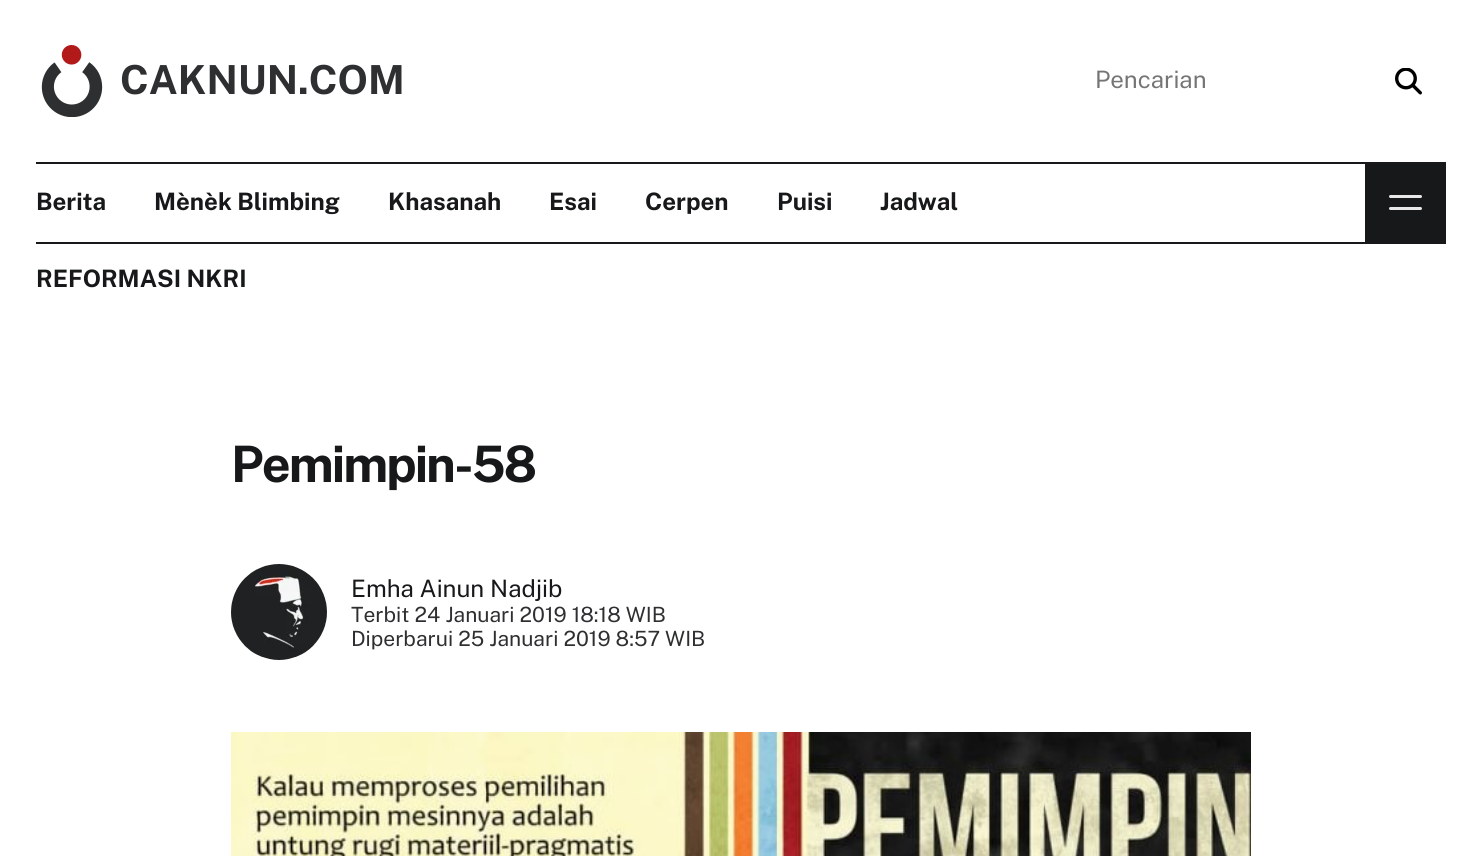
#include <cairo/cairo.h>
#include <math.h>
#include <stddef.h>

static cairo_t *cr;

static void use_color(int r, int g, int b) {
  cairo_set_source_rgb(cr, r / 255.0, g / 255.0, b / 255.0);
}

static void text(double x, double y, const char *s, const char *family, double size, int italic, int bold, int r, int g, int b) {
  cairo_select_font_face(cr, family, italic ? CAIRO_FONT_SLANT_ITALIC : CAIRO_FONT_SLANT_NORMAL,
    bold ? CAIRO_FONT_WEIGHT_BOLD : CAIRO_FONT_WEIGHT_NORMAL);
  cairo_set_font_size(cr, size);
  use_color(r, g, b);
  cairo_move_to(cr, x, y);
  cairo_show_text(cr, s);
}

static void spaced_text(double x, double y, const char *s, double letter, double word) {
  cairo_move_to(cr, x, y);
  while (*s) {
    char ch[5] = {0};
    int n = 0;
    do ch[n++] = *s++; while ((*s & 0xC0) == 0x80);
    cairo_show_text(cr, ch);
    cairo_rel_move_to(cr, letter + word * (*ch == ' '), 0);
  }
}

static void box(double x, double y, double w, double h, int r, int g, int b) {
  use_color(r, g, b);
  cairo_rectangle(cr, x, y, w, h);
  cairo_fill(cr);
}

static void round_rect(double x, double y, double w, double h, double r) {
  cairo_new_sub_path(cr);
  cairo_arc(cr, x + w - r, y + h - r, r, 0, M_PI / 2);
  cairo_arc(cr, x + r, y + h - r, r, M_PI / 2, M_PI);
  cairo_arc(cr, x + r, y + r, r, M_PI, 1.5 * M_PI);
  cairo_arc(cr, x + w - r, y + r, r, 1.5 * M_PI, 2 * M_PI);
  cairo_close_path(cr);
}

static void picture(const char *path, double x, double y, double w, double h) {
  cairo_surface_t *image = cairo_image_surface_create_from_png(path);
  cairo_save(cr);
  cairo_set_source_surface(cr, image, x, y);
  cairo_rectangle(cr, x, y, w, h);
  cairo_fill(cr);
  cairo_restore(cr);
  cairo_surface_destroy(image);
}

static void draw(void) {
  use_color(255, 255, 255);
  cairo_paint(cr);
  picture("img_01.png", 41, 45, 62, 72);
  picture("img_02.png", 1395, 68, 27, 27);
  box(36, 162, 1410, 2, 23, 24, 25);
  box(1365, 164, 81, 78, 23, 24, 25);
  use_color(232, 232, 232);
  round_rect(1389, 195, 33, 3, 1.5);
  cairo_fill(cr);
  round_rect(1389, 207, 33, 3, 1.5);
  cairo_fill(cr);
  box(36, 242, 1410, 2, 23, 24, 25);
  picture("img_03.png", 231, 564, 96, 96);
  picture("img_04.png", 231, 732, 1020, 124);
  text(120, 94, "CAKNUN.COM", "Public Sans", 40, 0, 1, 46, 47, 48);
  text(1095, 88, "Pencarian", "Public Sans", 24, 0, 0, 117, 117, 117);
  text(36, 210, "Berita", "Public Sans", 24, 0, 1, 23, 24, 25);
  text(154, 210, "Mènèk Blimbing", "Public Sans", 24, 0, 1, 23, 24, 25);
  text(388, 210, "Khasanah", "Public Sans", 24, 0, 1, 23, 24, 25);
  text(549, 210, "Esai", "Public Sans", 24, 0, 1, 23, 24, 25);
  text(645, 210, "Cerpen", "Public Sans", 24, 0, 1, 23, 24, 25);
  text(777, 210, "Puisi", "Public Sans", 24, 0, 1, 23, 24, 25);
  text(880, 210, "Jadwal", "Public Sans", 24, 0, 1, 23, 24, 25);
  text(36, 287, "REFORMASI NKRI", "Public Sans", 24, 0, 1, 23, 24, 25);
  cairo_set_font_size(cr, 50.25);
  spaced_text(231, 482, "Pemimpin-58", -2, 0);
  text(351, 597, "Emha Ainun Nadjib", "Public Sans", 24, 0, 0, 23, 24, 25);
  text(351, 622, "Terbit 24 Januari 2019 18:18 WIB", "Public Sans", 21, 0, 0, 46, 47, 48);
  text(351, 646, "Diperbarui 25 Januari 2019 8:57 WIB", "Public Sans", 21, 0, 0, 46, 47, 48);
}

int main(void) {
  cairo_surface_t *surface = cairo_image_surface_create(CAIRO_FORMAT_RGB24, 1482, 856);
  cr = cairo_create(surface);
  cairo_font_options_t *options = cairo_font_options_create();
  cairo_font_options_set_hint_metrics(options, CAIRO_HINT_METRICS_OFF);
  cairo_font_options_set_hint_style(options, CAIRO_HINT_STYLE_NONE);
  cairo_set_font_options(cr, options);
  cairo_set_miter_limit(cr, 4);
  draw();
  cairo_surface_write_to_png(surface, "out.png");
  cairo_font_options_destroy(options);
  cairo_destroy(cr);
  cairo_surface_destroy(surface);
  return 0;
}
